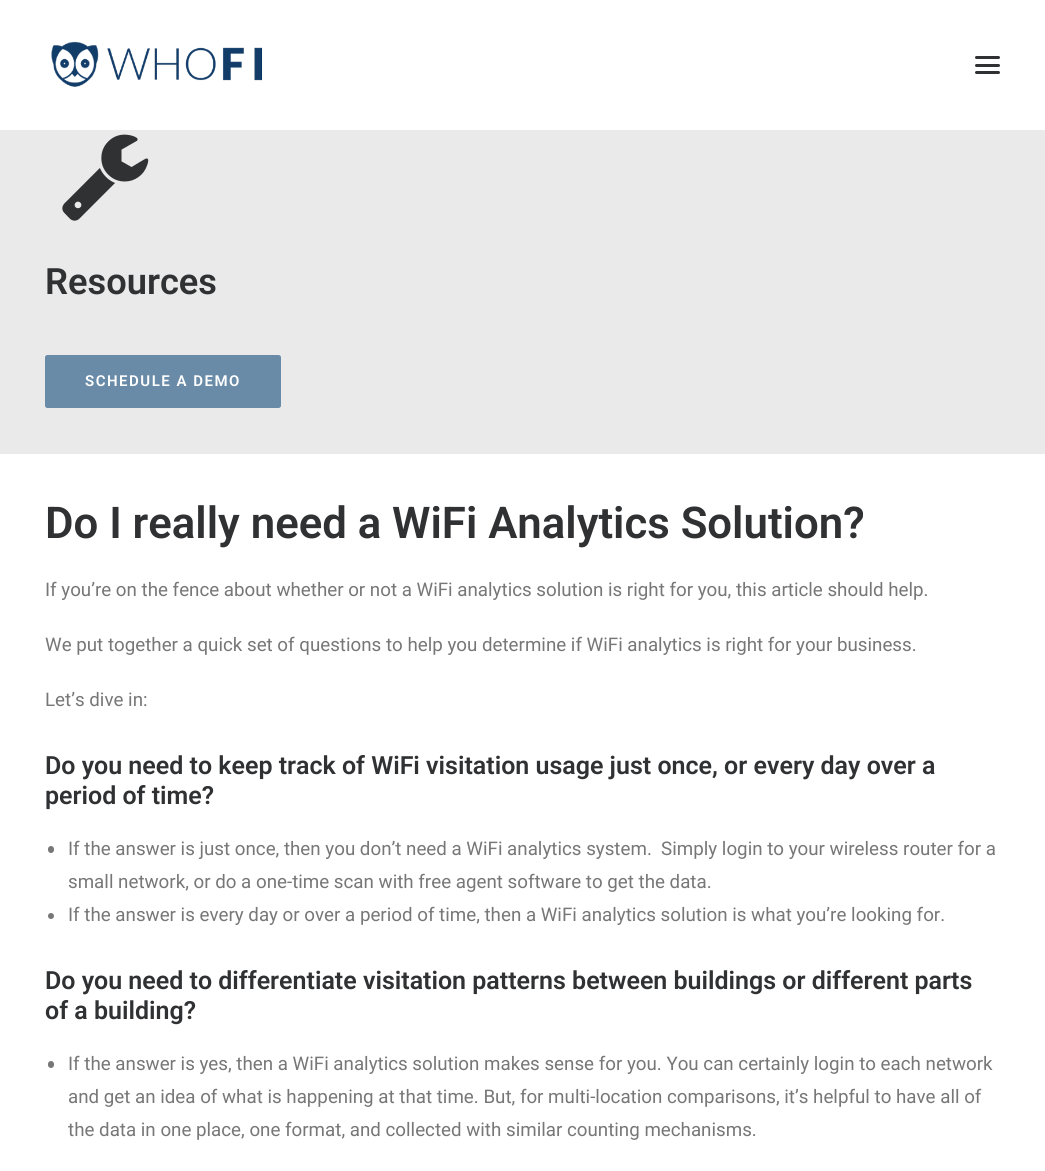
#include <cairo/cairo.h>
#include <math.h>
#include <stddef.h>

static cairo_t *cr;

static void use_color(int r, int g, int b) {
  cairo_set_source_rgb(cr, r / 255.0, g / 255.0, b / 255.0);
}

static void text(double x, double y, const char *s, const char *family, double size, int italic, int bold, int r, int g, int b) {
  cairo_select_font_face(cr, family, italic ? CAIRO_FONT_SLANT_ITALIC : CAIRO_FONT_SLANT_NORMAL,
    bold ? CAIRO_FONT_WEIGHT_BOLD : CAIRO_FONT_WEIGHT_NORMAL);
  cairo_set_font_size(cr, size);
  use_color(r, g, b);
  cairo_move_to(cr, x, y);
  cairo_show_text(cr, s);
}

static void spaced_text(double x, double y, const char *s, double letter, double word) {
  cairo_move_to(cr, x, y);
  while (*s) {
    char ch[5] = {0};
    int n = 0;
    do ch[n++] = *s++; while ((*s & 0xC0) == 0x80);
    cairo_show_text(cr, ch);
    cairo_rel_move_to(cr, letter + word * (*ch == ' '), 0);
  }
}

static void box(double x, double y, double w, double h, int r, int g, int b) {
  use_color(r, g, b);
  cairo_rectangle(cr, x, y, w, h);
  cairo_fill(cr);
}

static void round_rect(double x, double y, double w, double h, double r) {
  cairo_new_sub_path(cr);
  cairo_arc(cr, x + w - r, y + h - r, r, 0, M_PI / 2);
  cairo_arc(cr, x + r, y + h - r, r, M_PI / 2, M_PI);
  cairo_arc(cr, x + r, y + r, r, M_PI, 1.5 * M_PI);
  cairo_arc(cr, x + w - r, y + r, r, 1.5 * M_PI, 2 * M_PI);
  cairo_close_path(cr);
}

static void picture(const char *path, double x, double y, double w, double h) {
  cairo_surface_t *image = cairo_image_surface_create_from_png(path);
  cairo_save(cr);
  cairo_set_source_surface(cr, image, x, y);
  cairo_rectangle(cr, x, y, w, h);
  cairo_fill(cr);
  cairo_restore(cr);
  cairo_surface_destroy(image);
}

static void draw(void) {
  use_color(255, 255, 255);
  cairo_paint(cr);
  picture("img_01.png", 51, 41, 212, 46);
  use_color(48, 49, 51);
  round_rect(975, 64, 25, 3, 1.5);
  cairo_fill(cr);
  round_rect(975, 56, 25, 3, 1.5);
  cairo_fill(cr);
  round_rect(975, 71, 25, 3, 1.5);
  cairo_fill(cr);
  box(0, 130, 1045, 324, 234, 234, 234);
  picture("img_02.png", 62, 134, 87, 87);
  use_color(106, 139, 168);
  round_rect(45.5, 355.5, 235, 52, 2);
  cairo_fill_preserve(cr);
  cairo_set_line_width(cr, 1);
  cairo_stroke(cr);
  use_color(119, 119, 119);
  round_rect(48, 846, 6, 7, 3);
  cairo_fill(cr);
  cairo_arc(cr, 51, 916, 3, 0, 2 * M_PI);
  cairo_fill(cr);
  round_rect(48, 1061, 6, 7, 3);
  cairo_fill(cr);
  text(45, 294, "Resources", "Roboto SemiBold", 36.25, 0, 0, 48, 49, 51);
  cairo_set_font_size(cr, 15);
  use_color(255, 255, 255);
  spaced_text(85, 386, "SCHEDULE A DEMO", 1.5, 0);
  text(45, 538, "Do I really need a WiFi Analytics Solution?", "Roboto SemiBold", 43.75, 0, 0, 48, 49, 51);
  text(45, 596, "If you’re on the fence about whether or not a WiFi analytics solution is right for you, this article should help.", "Roboto", 18.75, 0, 0, 119, 119, 119);
  text(45, 651, "We put together a quick set of questions to help you determine if WiFi analytics is right for your business.", "Roboto", 18.75, 0, 0, 119, 119, 119);
  text(45, 706, "Let’s dive in:", "Roboto", 18.75, 0, 0, 119, 119, 119);
  text(45, 774, "Do you need to keep track of WiFi visitation usage just once, or every day over a", "Roboto SemiBold", 25, 0, 0, 48, 49, 51);
  text(45, 804, "period of time?", "Roboto SemiBold", 25, 0, 0, 48, 49, 51);
  text(68, 855, "If the answer is just once, then you don’t need a WiFi analytics system.  Simply login to your wireless router for a", "Roboto", 18.75, 0, 0, 119, 119, 119);
  text(68, 888, "small network, or do a one-time scan with free agent software to get the data.", "Roboto", 18.75, 0, 0, 119, 119, 119);
  text(68, 921, "If the answer is every day or over a period of time, then a WiFi analytics solution is what you’re looking for.", "Roboto", 18.75, 0, 0, 119, 119, 119);
  text(45, 989, "Do you need to differentiate visitation patterns between buildings or different parts", "Roboto SemiBold", 25, 0, 0, 48, 49, 51);
  text(45, 1019, "of a building?", "Roboto SemiBold", 25, 0, 0, 48, 49, 51);
  text(68, 1070, "If the answer is yes, then a WiFi analytics solution makes sense for you. You can certainly login to each network", "Roboto", 18.75, 0, 0, 119, 119, 119);
  text(68, 1103, "and get an idea of what is happening at that time. But, for multi-location comparisons, it’s helpful to have all of", "Roboto", 18.75, 0, 0, 119, 119, 119);
  text(68, 1136, "the data in one place, one format, and collected with similar counting mechanisms.", "Roboto", 18.75, 0, 0, 119, 119, 119);
}

int main(void) {
  cairo_surface_t *surface = cairo_image_surface_create(CAIRO_FORMAT_RGB24, 1045, 1171);
  cr = cairo_create(surface);
  cairo_font_options_t *options = cairo_font_options_create();
  cairo_font_options_set_hint_metrics(options, CAIRO_HINT_METRICS_OFF);
  cairo_font_options_set_hint_style(options, CAIRO_HINT_STYLE_NONE);
  cairo_set_font_options(cr, options);
  cairo_set_miter_limit(cr, 4);
  draw();
  cairo_surface_write_to_png(surface, "out.png");
  cairo_font_options_destroy(options);
  cairo_destroy(cr);
  cairo_surface_destroy(surface);
  return 0;
}
